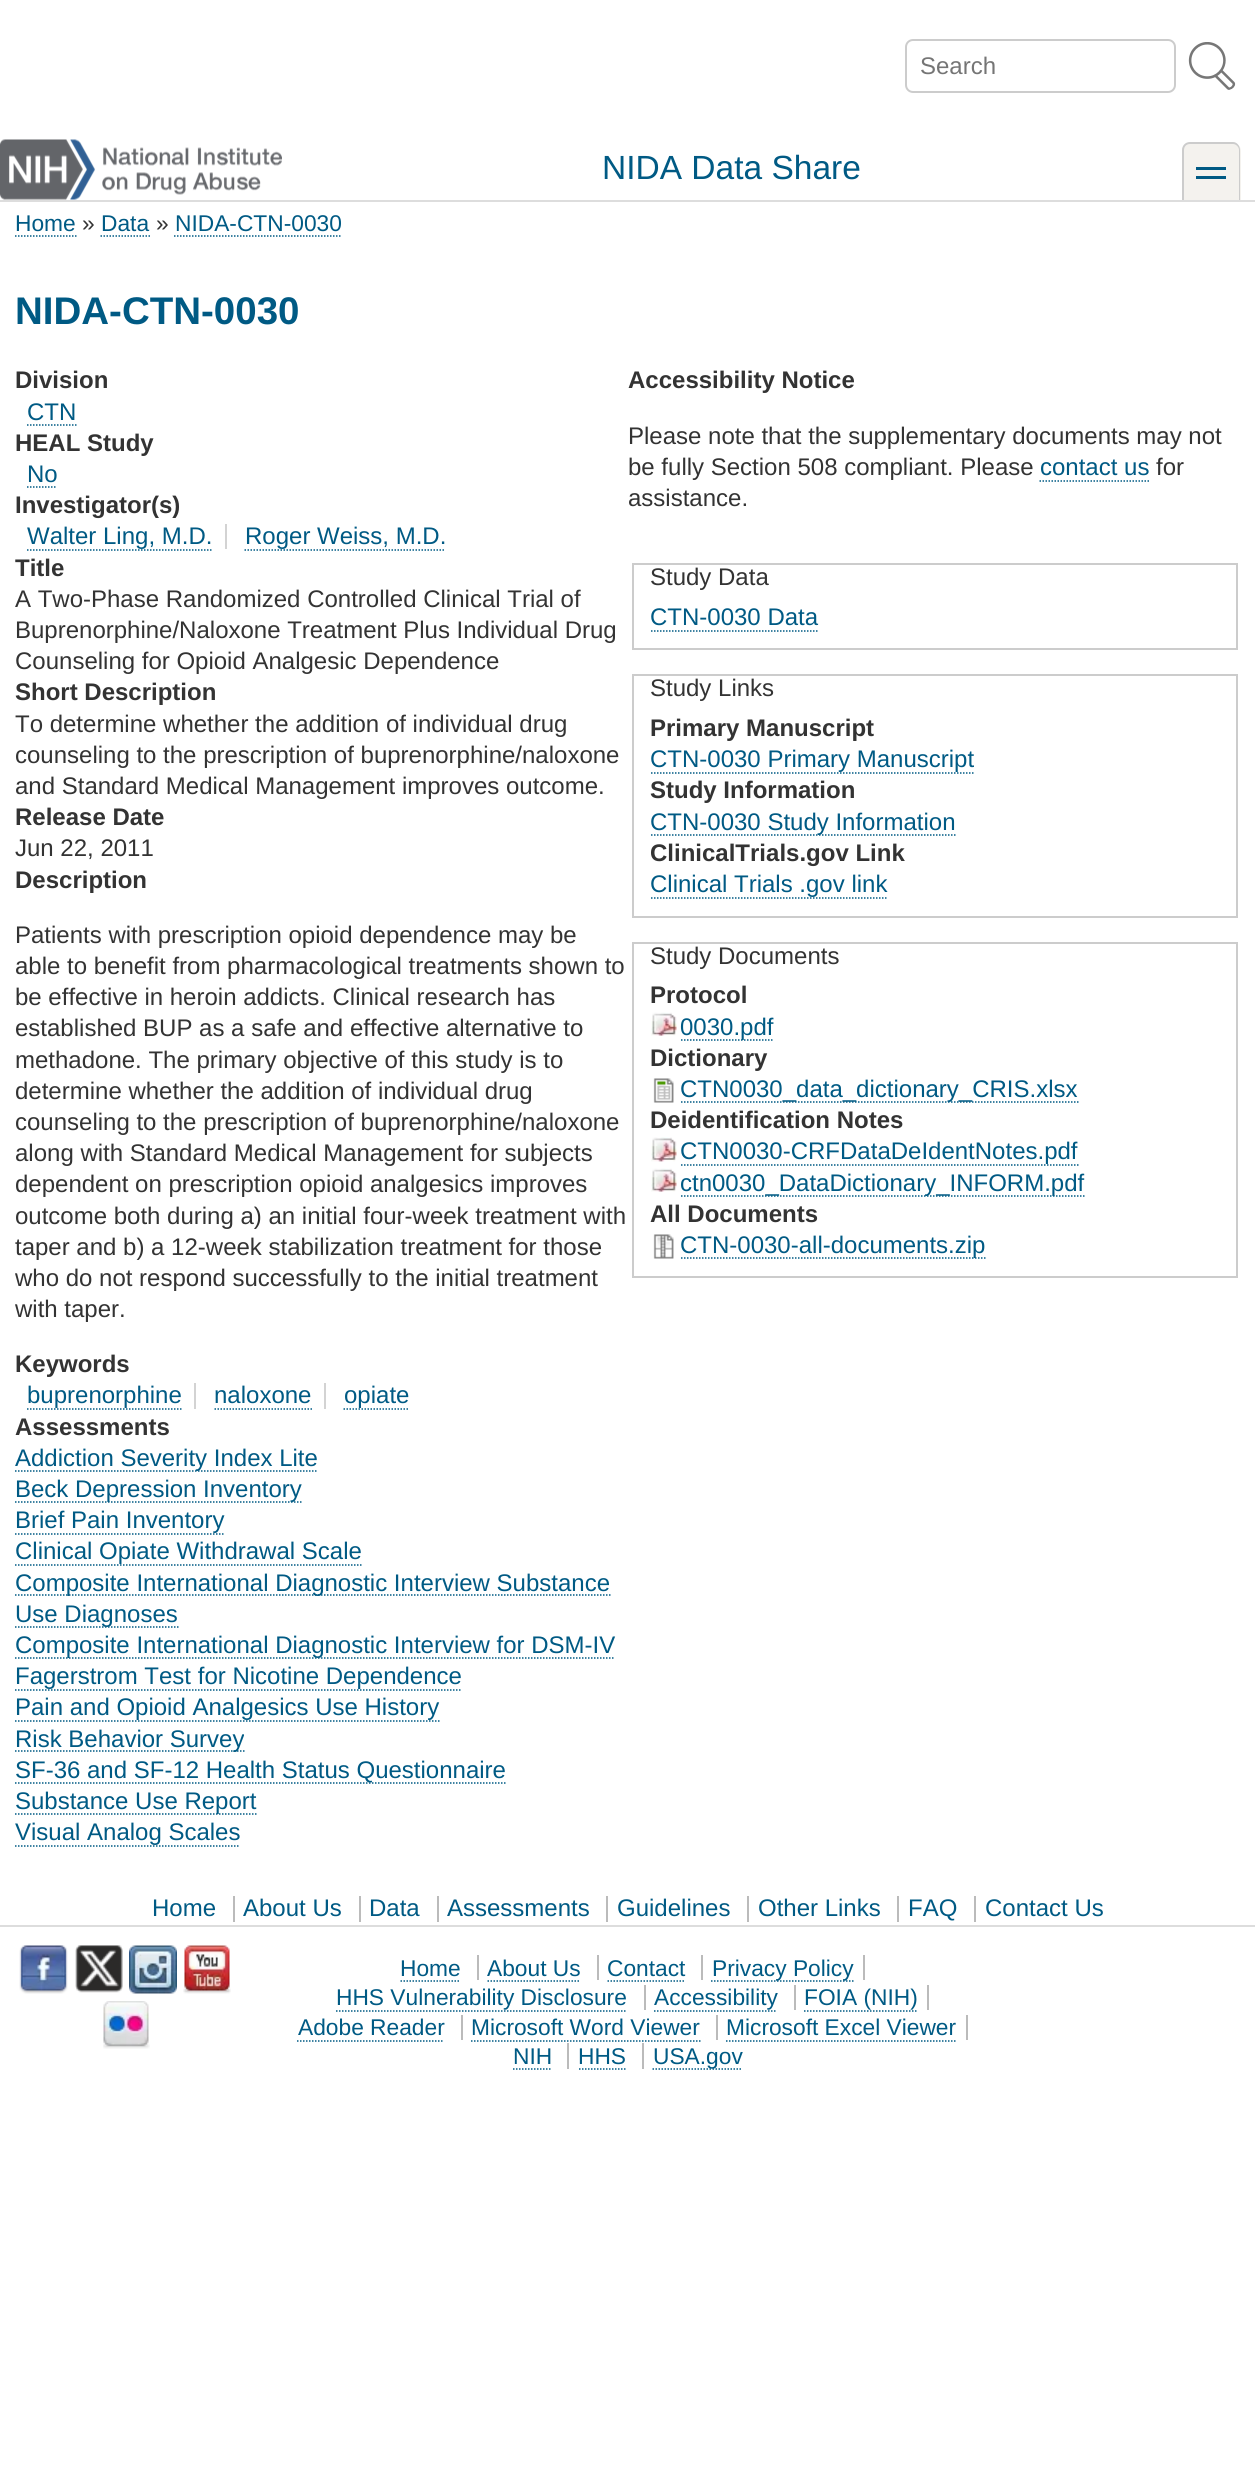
#include <cairo/cairo.h>
#include <math.h>
#include <stddef.h>

static cairo_t *cr;

static void use_color(int r, int g, int b) {
  cairo_set_source_rgb(cr, r / 255.0, g / 255.0, b / 255.0);
}

static void text(double x, double y, const char *s, const char *family, double size, int italic, int bold, int r, int g, int b) {
  cairo_select_font_face(cr, family, italic ? CAIRO_FONT_SLANT_ITALIC : CAIRO_FONT_SLANT_NORMAL,
    bold ? CAIRO_FONT_WEIGHT_BOLD : CAIRO_FONT_WEIGHT_NORMAL);
  cairo_set_font_size(cr, size);
  use_color(r, g, b);
  cairo_move_to(cr, x, y);
  cairo_show_text(cr, s);
}

static void box(double x, double y, double w, double h, int r, int g, int b) {
  use_color(r, g, b);
  cairo_rectangle(cr, x, y, w, h);
  cairo_fill(cr);
}

static void round_rect(double x, double y, double w, double h, double r) {
  cairo_new_sub_path(cr);
  cairo_arc(cr, x + w - r, y + h - r, r, 0, M_PI / 2);
  cairo_arc(cr, x + r, y + h - r, r, M_PI / 2, M_PI);
  cairo_arc(cr, x + r, y + r, r, M_PI, 1.5 * M_PI);
  cairo_arc(cr, x + w - r, y + r, r, 1.5 * M_PI, 2 * M_PI);
  cairo_close_path(cr);
}

static void picture(const char *path, double x, double y, double w, double h) {
  cairo_surface_t *image = cairo_image_surface_create_from_png(path);
  cairo_save(cr);
  cairo_set_source_surface(cr, image, x, y);
  cairo_rectangle(cr, x, y, w, h);
  cairo_fill(cr);
  cairo_restore(cr);
  cairo_surface_destroy(image);
}

static void draw(void) {
  use_color(255, 255, 255);
  cairo_paint(cr);
  round_rect(906, 40, 269, 52, 7);
  use_color(204, 204, 204);
  cairo_stroke(cr);
  picture("img_01.png", 1188, 42, 48, 48);
  box(0, 200, 1255, 2, 221, 221, 221);
  use_color(244, 242, 238);
  cairo_new_path(cr);
  cairo_move_to(cr, 1190, 143);
  cairo_line_to(cr, 1233, 143);
  cairo_curve_to(cr, 1237.5, 143, 1241, 146.5, 1241, 151);
  cairo_line_to(cr, 1241, 200);
  cairo_line_to(cr, 1182, 200);
  cairo_line_to(cr, 1182, 151);
  cairo_curve_to(cr, 1182, 146.5, 1185.5, 143, 1190, 143);
  cairo_close_path(cr);
  cairo_fill(cr);
  use_color(204, 204, 204);
  cairo_set_fill_rule(cr, CAIRO_FILL_RULE_EVEN_ODD);
  cairo_new_path(cr);
  cairo_move_to(cr, 1190, 142);
  cairo_line_to(cr, 1233, 142);
  cairo_curve_to(cr, 1237, 142, 1240, 146, 1240, 150);
  cairo_line_to(cr, 1240, 200);
  cairo_line_to(cr, 1182, 200);
  cairo_line_to(cr, 1182, 150);
  cairo_curve_to(cr, 1182, 146, 1185, 142, 1190, 142);
  cairo_close_path(cr);
  cairo_move_to(cr, 1190, 144);
  cairo_line_to(cr, 1233, 144);
  cairo_curve_to(cr, 1236, 144, 1239, 147, 1239, 150);
  cairo_line_to(cr, 1239, 200);
  cairo_line_to(cr, 1184, 200);
  cairo_line_to(cr, 1184, 150);
  cairo_curve_to(cr, 1184, 147, 1186, 144, 1190, 144);
  cairo_close_path(cr);
  cairo_fill(cr);
  box(1196, 167, 30, 3, 0, 90, 132);
  box(1196, 176, 30, 3, 0, 90, 132);
  picture("img_02.png", 0, 139, 282, 61);
  box(0, 1925, 1255, 2, 221, 221, 221);
  cairo_new_path(cr);
  cairo_move_to(cr, 15, 236);
  cairo_line_to(cr, 76.5, 236);
  use_color(0, 90, 132);
  cairo_set_line_width(cr, 1.5);
  cairo_set_dash(cr, (double[]){1.5, 1.5}, 2, 0);
  cairo_stroke(cr);
  cairo_new_path(cr);
  cairo_move_to(cr, 100.5, 236);
  cairo_line_to(cr, 150, 236);
  cairo_stroke(cr);
  cairo_new_path(cr);
  cairo_move_to(cr, 174, 236);
  cairo_line_to(cr, 342, 236);
  cairo_stroke(cr);
  cairo_new_path(cr);
  cairo_move_to(cr, 27, 425);
  cairo_line_to(cr, 76.5, 425);
  cairo_stroke(cr);
  cairo_new_path(cr);
  cairo_move_to(cr, 27, 487);
  cairo_line_to(cr, 57, 487);
  cairo_stroke(cr);
  box(225, 524, 2, 25, 211, 211, 211);
  cairo_new_path(cr);
  cairo_move_to(cr, 27, 550);
  cairo_line_to(cr, 213, 550);
  use_color(0, 90, 132);
  cairo_stroke(cr);
  cairo_new_path(cr);
  cairo_move_to(cr, 244.5, 550);
  cairo_line_to(cr, 445.5, 550);
  cairo_stroke(cr);
  box(194, 1383, 2, 26, 211, 211, 211);
  cairo_new_path(cr);
  cairo_move_to(cr, 27, 1409);
  cairo_line_to(cr, 181.5, 1409);
  use_color(0, 90, 132);
  cairo_stroke(cr);
  box(324, 1383, 2, 26, 211, 211, 211);
  cairo_new_path(cr);
  cairo_move_to(cr, 214.5, 1409);
  cairo_line_to(cr, 312, 1409);
  use_color(0, 90, 132);
  cairo_stroke(cr);
  cairo_new_path(cr);
  cairo_move_to(cr, 343.5, 1409);
  cairo_line_to(cr, 409.5, 1409);
  cairo_stroke(cr);
  cairo_new_path(cr);
  cairo_move_to(cr, 15, 1471);
  cairo_line_to(cr, 318, 1471);
  cairo_stroke(cr);
  cairo_new_path(cr);
  cairo_move_to(cr, 15, 1502);
  cairo_line_to(cr, 301.5, 1502);
  cairo_stroke(cr);
  cairo_new_path(cr);
  cairo_move_to(cr, 15, 1534);
  cairo_line_to(cr, 225, 1534);
  cairo_stroke(cr);
  cairo_new_path(cr);
  cairo_move_to(cr, 15, 1565);
  cairo_line_to(cr, 361.5, 1565);
  cairo_stroke(cr);
  cairo_new_path(cr);
  cairo_move_to(cr, 15, 1595);
  cairo_line_to(cr, 610.5, 1595);
  cairo_stroke(cr);
  cairo_new_path(cr);
  cairo_move_to(cr, 15, 1627);
  cairo_line_to(cr, 178.5, 1627);
  cairo_stroke(cr);
  cairo_new_path(cr);
  cairo_move_to(cr, 15, 1658);
  cairo_line_to(cr, 615, 1658);
  cairo_stroke(cr);
  cairo_new_path(cr);
  cairo_move_to(cr, 15, 1690);
  cairo_line_to(cr, 462, 1690);
  cairo_stroke(cr);
  cairo_new_path(cr);
  cairo_move_to(cr, 15, 1721);
  cairo_line_to(cr, 439.5, 1721);
  cairo_stroke(cr);
  cairo_new_path(cr);
  cairo_move_to(cr, 15, 1751);
  cairo_line_to(cr, 244.5, 1751);
  cairo_stroke(cr);
  cairo_new_path(cr);
  cairo_move_to(cr, 15, 1783);
  cairo_line_to(cr, 505.5, 1783);
  cairo_stroke(cr);
  cairo_new_path(cr);
  cairo_move_to(cr, 15, 1814);
  cairo_line_to(cr, 256.5, 1814);
  cairo_stroke(cr);
  cairo_new_path(cr);
  cairo_move_to(cr, 15, 1846);
  cairo_line_to(cr, 240, 1846);
  cairo_stroke(cr);
  cairo_new_path(cr);
  cairo_move_to(cr, 1039.5, 481);
  cairo_line_to(cr, 1149, 481);
  cairo_stroke(cr);
  cairo_rectangle(cr, 633, 564, 604, 85);
  use_color(204, 204, 204);
  cairo_set_line_width(cr, 2);
  cairo_set_dash(cr, NULL, 0, 0);
  cairo_stroke(cr);
  cairo_new_path(cr);
  cairo_move_to(cr, 651, 631);
  cairo_line_to(cr, 819, 631);
  use_color(0, 90, 132);
  cairo_set_line_width(cr, 1.5);
  cairo_set_dash(cr, (double[]){1.5, 1.5}, 2, 0);
  cairo_stroke(cr);
  cairo_rectangle(cr, 633, 675, 604, 242);
  use_color(204, 204, 204);
  cairo_set_line_width(cr, 2);
  cairo_set_dash(cr, NULL, 0, 0);
  cairo_stroke(cr);
  cairo_new_path(cr);
  cairo_move_to(cr, 651, 773);
  cairo_line_to(cr, 975, 773);
  use_color(0, 90, 132);
  cairo_set_line_width(cr, 1.5);
  cairo_set_dash(cr, (double[]){1.5, 1.5}, 2, 0);
  cairo_stroke(cr);
  cairo_new_path(cr);
  cairo_move_to(cr, 651, 835);
  cairo_line_to(cr, 955.5, 835);
  cairo_stroke(cr);
  cairo_new_path(cr);
  cairo_move_to(cr, 651, 898);
  cairo_line_to(cr, 888, 898);
  cairo_stroke(cr);
  cairo_rectangle(cr, 633, 943, 604, 334);
  use_color(204, 204, 204);
  cairo_set_line_width(cr, 2);
  cairo_set_dash(cr, NULL, 0, 0);
  cairo_stroke(cr);
  picture("img_03.png", 651, 1012, 26, 24);
  cairo_new_path(cr);
  cairo_move_to(cr, 681, 1040);
  cairo_line_to(cr, 774, 1040);
  use_color(0, 90, 132);
  cairo_set_line_width(cr, 1.5);
  cairo_set_dash(cr, (double[]){1.5, 1.5}, 2, 0);
  cairo_stroke(cr);
  picture("img_04.png", 653, 1078, 21, 25);
  cairo_new_path(cr);
  cairo_move_to(cr, 681, 1102);
  cairo_line_to(cr, 1078.5, 1102);
  cairo_stroke(cr);
  picture("img_05.png", 651, 1137, 26, 25);
  cairo_new_path(cr);
  cairo_move_to(cr, 681, 1165);
  cairo_line_to(cr, 1078.5, 1165);
  cairo_stroke(cr);
  picture("img_03.png", 651, 1168, 26, 24);
  cairo_new_path(cr);
  cairo_move_to(cr, 681, 1196);
  cairo_line_to(cr, 1084.5, 1196);
  cairo_stroke(cr);
  picture("img_06.png", 653, 1234, 21, 25);
  cairo_new_path(cr);
  cairo_move_to(cr, 681, 1258);
  cairo_line_to(cr, 985.5, 1258);
  cairo_stroke(cr);
  box(233, 1896, 2, 26, 187, 187, 187);
  box(359, 1896, 2, 26, 187, 187, 187);
  box(437, 1896, 2, 26, 187, 187, 187);
  box(606, 1896, 2, 26, 187, 187, 187);
  box(747, 1896, 2, 26, 187, 187, 187);
  box(897, 1896, 2, 26, 187, 187, 187);
  box(974, 1896, 2, 26, 187, 187, 187);
  picture("img_07.png", 19, 1945, 49, 49);
  picture("img_08.png", 75, 1945, 48, 48);
  picture("img_09.png", 129, 1945, 48, 49);
  picture("img_10.png", 183, 1945, 48, 49);
  picture("img_11.png", 103, 2001, 47, 48);
  box(477, 1955, 2, 25, 187, 187, 187);
  cairo_new_path(cr);
  cairo_move_to(cr, 400.5, 1981);
  cairo_line_to(cr, 460.5, 1981);
  use_color(0, 90, 132);
  cairo_stroke(cr);
  box(597, 1955, 2, 25, 187, 187, 187);
  cairo_new_path(cr);
  cairo_move_to(cr, 487.5, 1981);
  cairo_line_to(cr, 580.5, 1981);
  use_color(0, 90, 132);
  cairo_stroke(cr);
  box(701, 1955, 2, 25, 187, 187, 187);
  cairo_new_path(cr);
  cairo_move_to(cr, 607.5, 1981);
  cairo_line_to(cr, 685.5, 1981);
  use_color(0, 90, 132);
  cairo_stroke(cr);
  box(863, 1955, 2, 25, 187, 187, 187);
  cairo_new_path(cr);
  cairo_move_to(cr, 711, 1981);
  cairo_line_to(cr, 853.5, 1981);
  use_color(0, 90, 132);
  cairo_stroke(cr);
  box(644, 1985, 2, 25, 187, 187, 187);
  cairo_new_path(cr);
  cairo_move_to(cr, 336, 2011);
  cairo_line_to(cr, 627, 2011);
  use_color(0, 90, 132);
  cairo_stroke(cr);
  box(794, 1985, 2, 25, 187, 187, 187);
  cairo_new_path(cr);
  cairo_move_to(cr, 654, 2011);
  cairo_line_to(cr, 777, 2011);
  use_color(0, 90, 132);
  cairo_stroke(cr);
  box(927, 1985, 2, 25, 187, 187, 187);
  cairo_new_path(cr);
  cairo_move_to(cr, 804, 2011);
  cairo_line_to(cr, 918, 2011);
  use_color(0, 90, 132);
  cairo_stroke(cr);
  box(461, 2015, 2, 25, 187, 187, 187);
  cairo_new_path(cr);
  cairo_move_to(cr, 297, 2041);
  cairo_line_to(cr, 444, 2041);
  use_color(0, 90, 132);
  cairo_stroke(cr);
  box(716, 2015, 2, 25, 187, 187, 187);
  cairo_new_path(cr);
  cairo_move_to(cr, 471, 2041);
  cairo_line_to(cr, 700.5, 2041);
  use_color(0, 90, 132);
  cairo_stroke(cr);
  box(966, 2015, 2, 25, 187, 187, 187);
  cairo_new_path(cr);
  cairo_move_to(cr, 726, 2041);
  cairo_line_to(cr, 957, 2041);
  use_color(0, 90, 132);
  cairo_stroke(cr);
  box(567, 2043, 2, 26, 187, 187, 187);
  cairo_new_path(cr);
  cairo_move_to(cr, 513, 2069);
  cairo_line_to(cr, 552, 2069);
  use_color(0, 90, 132);
  cairo_stroke(cr);
  box(642, 2043, 2, 26, 187, 187, 187);
  cairo_new_path(cr);
  cairo_move_to(cr, 579, 2069);
  cairo_line_to(cr, 627, 2069);
  use_color(0, 90, 132);
  cairo_stroke(cr);
  cairo_new_path(cr);
  cairo_move_to(cr, 652.5, 2069);
  cairo_line_to(cr, 742.5, 2069);
  cairo_stroke(cr);
  text(920, 74, "Search", "Liberation Sans", 24, 0, 0, 117, 117, 117);
  text(602, 179, "NIDA Data Share", "Liberation Sans", 33.5, 0, 0, 0, 90, 132);
  text(15, 231, "Home", "Liberation Sans", 22.75, 0, 0, 0, 90, 132);
  text(82, 231, "»", "Liberation Sans", 22.75, 0, 0, 51, 51, 51);
  text(101, 231, "Data", "Liberation Sans", 22.75, 0, 0, 0, 90, 132);
  text(156, 231, "»", "Liberation Sans", 22.75, 0, 0, 51, 51, 51);
  text(175, 231, "NIDA-CTN-0030", "Liberation Sans", 22.75, 0, 0, 0, 90, 132);
  text(15, 324, "NIDA-CTN-0030", "Liberation Sans", 38.5, 0, 1, 0, 90, 132);
  text(15, 388, "Division", "Liberation Sans", 24, 0, 1, 51, 51, 51);
  text(27, 420, "CTN", "Liberation Sans", 24, 0, 0, 0, 90, 132);
  text(15, 451, "HEAL Study", "Liberation Sans", 24, 0, 1, 51, 51, 51);
  text(27, 482, "No", "Liberation Sans", 24, 0, 0, 0, 90, 132);
  text(15, 513, "Investigator(s)", "Liberation Sans", 24, 0, 1, 51, 51, 51);
  text(27, 544, "Walter Ling, M.D.", "Liberation Sans", 24, 0, 0, 0, 90, 132);
  text(245, 544, "Roger Weiss, M.D.", "Liberation Sans", 24, 0, 0, 0, 90, 132);
  text(15, 576, "Title", "Liberation Sans", 24, 0, 1, 51, 51, 51);
  text(15, 607, "A Two-Phase Randomized Controlled Clinical Trial of", "Liberation Sans", 24, 0, 0, 51, 51, 51);
  text(15, 638, "Buprenorphine/Naloxone Treatment Plus Individual Drug", "Liberation Sans", 24, 0, 0, 51, 51, 51);
  text(15, 669, "Counseling for Opioid Analgesic Dependence", "Liberation Sans", 24, 0, 0, 51, 51, 51);
  text(15, 700, "Short Description", "Liberation Sans", 24, 0, 1, 51, 51, 51);
  text(15, 732, "To determine whether the addition of individual drug", "Liberation Sans", 24, 0, 0, 51, 51, 51);
  text(15, 763, "counseling to the prescription of buprenorphine/naloxone", "Liberation Sans", 24, 0, 0, 51, 51, 51);
  text(15, 794, "and Standard Medical Management improves outcome.", "Liberation Sans", 24, 0, 0, 51, 51, 51);
  text(15, 825, "Release Date", "Liberation Sans", 24, 0, 1, 51, 51, 51);
  text(15, 856, "Jun 22, 2011", "Liberation Sans", 24, 0, 0, 51, 51, 51);
  text(15, 888, "Description", "Liberation Sans", 24, 0, 1, 51, 51, 51);
  text(15, 943, "Patients with prescription opioid dependence may be", "Liberation Sans", 24, 0, 0, 51, 51, 51);
  text(15, 974, "able to benefit from pharmacological treatments shown to", "Liberation Sans", 24, 0, 0, 51, 51, 51);
  text(15, 1005, "be effective in heroin addicts. Clinical research has", "Liberation Sans", 24, 0, 0, 51, 51, 51);
  text(15, 1036, "established BUP as a safe and effective alternative to", "Liberation Sans", 24, 0, 0, 51, 51, 51);
  text(15, 1068, "methadone. The primary objective of this study is to", "Liberation Sans", 24, 0, 0, 51, 51, 51);
  text(15, 1099, "determine whether the addition of individual drug", "Liberation Sans", 24, 0, 0, 51, 51, 51);
  text(15, 1130, "counseling to the prescription of buprenorphine/naloxone", "Liberation Sans", 24, 0, 0, 51, 51, 51);
  text(15, 1161, "along with Standard Medical Management for subjects", "Liberation Sans", 24, 0, 0, 51, 51, 51);
  text(15, 1192, "dependent on prescription opioid analgesics improves", "Liberation Sans", 24, 0, 0, 51, 51, 51);
  text(15, 1224, "outcome both during a) an initial four-week treatment with", "Liberation Sans", 24, 0, 0, 51, 51, 51);
  text(15, 1255, "taper and b) a 12-week stabilization treatment for those", "Liberation Sans", 24, 0, 0, 51, 51, 51);
  text(15, 1286, "who do not respond successfully to the initial treatment", "Liberation Sans", 24, 0, 0, 51, 51, 51);
  text(15, 1317, "with taper.", "Liberation Sans", 24, 0, 0, 51, 51, 51);
  text(15, 1372, "Keywords", "Liberation Sans", 24, 0, 1, 51, 51, 51);
  text(27, 1403, "buprenorphine", "Liberation Sans", 24, 0, 0, 0, 90, 132);
  text(214, 1403, "naloxone", "Liberation Sans", 24, 0, 0, 0, 90, 132);
  text(344, 1403, "opiate", "Liberation Sans", 24, 0, 0, 0, 90, 132);
  text(15, 1435, "Assessments", "Liberation Sans", 24, 0, 1, 51, 51, 51);
  text(15, 1466, "Addiction Severity Index Lite", "Liberation Sans", 24, 0, 0, 0, 90, 132);
  text(15, 1497, "Beck Depression Inventory", "Liberation Sans", 24, 0, 0, 0, 90, 132);
  text(15, 1528, "Brief Pain Inventory", "Liberation Sans", 24, 0, 0, 0, 90, 132);
  text(15, 1559, "Clinical Opiate Withdrawal Scale", "Liberation Sans", 24, 0, 0, 0, 90, 132);
  text(15, 1591, "Composite International Diagnostic Interview Substance", "Liberation Sans", 24, 0, 0, 0, 90, 132);
  text(15, 1622, "Use Diagnoses", "Liberation Sans", 24, 0, 0, 0, 90, 132);
  text(15, 1653, "Composite International Diagnostic Interview for DSM-IV", "Liberation Sans", 24, 0, 0, 0, 90, 132);
  text(15, 1684, "Fagerstrom Test for Nicotine Dependence", "Liberation Sans", 24, 0, 0, 0, 90, 132);
  text(15, 1715, "Pain and Opioid Analgesics Use History", "Liberation Sans", 24, 0, 0, 0, 90, 132);
  text(15, 1747, "Risk Behavior Survey", "Liberation Sans", 24, 0, 0, 0, 90, 132);
  text(15, 1778, "SF-36 and SF-12 Health Status Questionnaire", "Liberation Sans", 24, 0, 0, 0, 90, 132);
  text(15, 1809, "Substance Use Report", "Liberation Sans", 24, 0, 0, 0, 90, 132);
  text(15, 1840, "Visual Analog Scales", "Liberation Sans", 24, 0, 0, 0, 90, 132);
  text(628, 388, "Accessibility Notice", "Liberation Sans", 24, 0, 1, 51, 51, 51);
  text(628, 444, "Please note that the supplementary documents may not", "Liberation Sans", 24, 0, 0, 51, 51, 51);
  text(628, 475, "be fully Section 508 compliant. Please", "Liberation Sans", 24, 0, 0, 51, 51, 51);
  text(1040, 475, "contact us", "Liberation Sans", 24, 0, 0, 0, 90, 132);
  text(1156, 475, "for", "Liberation Sans", 24, 0, 0, 51, 51, 51);
  text(628, 506, "assistance.", "Liberation Sans", 24, 0, 0, 51, 51, 51);
  text(650, 585, "Study Data", "Liberation Sans", 24, 0, 0, 51, 51, 51);
  text(650, 625, "CTN-0030 Data", "Liberation Sans", 24, 0, 0, 0, 90, 132);
  text(650, 696, "Study Links", "Liberation Sans", 24, 0, 0, 51, 51, 51);
  text(650, 736, "Primary Manuscript", "Liberation Sans", 24, 0, 1, 51, 51, 51);
  text(650, 767, "CTN-0030 Primary Manuscript", "Liberation Sans", 24, 0, 0, 0, 90, 132);
  text(650, 798, "Study Information", "Liberation Sans", 24, 0, 1, 51, 51, 51);
  text(650, 830, "CTN-0030 Study Information", "Liberation Sans", 24, 0, 0, 0, 90, 132);
  text(650, 861, "ClinicalTrials.gov Link", "Liberation Sans", 24, 0, 1, 51, 51, 51);
  text(650, 892, "Clinical Trials .gov link", "Liberation Sans", 24, 0, 0, 0, 90, 132);
  text(650, 964, "Study Documents", "Liberation Sans", 24, 0, 0, 51, 51, 51);
  text(650, 1003, "Protocol", "Liberation Sans", 24, 0, 1, 51, 51, 51);
  text(680, 1035, "0030.pdf", "Liberation Sans", 24, 0, 0, 0, 90, 132);
  text(650, 1066, "Dictionary", "Liberation Sans", 24, 0, 1, 51, 51, 51);
  text(680, 1097, "CTN0030_data_dictionary_CRIS.xlsx", "Liberation Sans", 24, 0, 0, 0, 90, 132);
  text(650, 1128, "Deidentification Notes", "Liberation Sans", 24, 0, 1, 51, 51, 51);
  text(680, 1159, "CTN0030-CRFDataDeIdentNotes.pdf", "Liberation Sans", 24, 0, 0, 0, 90, 132);
  text(680, 1191, "ctn0030_DataDictionary_INFORM.pdf", "Liberation Sans", 24, 0, 0, 0, 90, 132);
  text(650, 1222, "All Documents", "Liberation Sans", 24, 0, 1, 51, 51, 51);
  text(680, 1253, "CTN-0030-all-documents.zip", "Liberation Sans", 24, 0, 0, 0, 90, 132);
  text(152, 1916, "Home", "Liberation Sans", 24, 0, 0, 0, 90, 132);
  text(243, 1916, "About Us", "Liberation Sans", 24, 0, 0, 0, 90, 132);
  text(369, 1916, "Data", "Liberation Sans", 24, 0, 0, 0, 90, 132);
  text(447, 1916, "Assessments", "Liberation Sans", 24, 0, 0, 0, 90, 132);
  text(617, 1916, "Guidelines", "Liberation Sans", 24, 0, 0, 0, 90, 132);
  text(758, 1916, "Other Links", "Liberation Sans", 24, 0, 0, 0, 90, 132);
  text(908, 1916, "FAQ", "Liberation Sans", 24, 0, 0, 0, 90, 132);
  text(985, 1916, "Contact Us", "Liberation Sans", 24, 0, 0, 0, 90, 132);
  text(400, 1976, "Home", "Liberation Sans", 22.75, 0, 0, 0, 90, 132);
  text(487, 1976, "About Us", "Liberation Sans", 22.75, 0, 0, 0, 90, 132);
  text(607, 1976, "Contact", "Liberation Sans", 22.75, 0, 0, 0, 90, 132);
  text(712, 1976, "Privacy Policy", "Liberation Sans", 22.75, 0, 0, 0, 90, 132);
  text(336, 2005, "HHS Vulnerability Disclosure", "Liberation Sans", 22.75, 0, 0, 0, 90, 132);
  text(654, 2005, "Accessibility", "Liberation Sans", 22.75, 0, 0, 0, 90, 132);
  text(804, 2005, "FOIA (NIH)", "Liberation Sans", 22.75, 0, 0, 0, 90, 132);
  text(298, 2035, "Adobe Reader", "Liberation Sans", 22.75, 0, 0, 0, 90, 132);
  text(471, 2035, "Microsoft Word Viewer", "Liberation Sans", 22.75, 0, 0, 0, 90, 132);
  text(726, 2035, "Microsoft Excel Viewer", "Liberation Sans", 22.75, 0, 0, 0, 90, 132);
  text(513, 2064, "NIH", "Liberation Sans", 22.75, 0, 0, 0, 90, 132);
  text(578, 2064, "HHS", "Liberation Sans", 22.75, 0, 0, 0, 90, 132);
  text(653, 2064, "USA.gov", "Liberation Sans", 22.75, 0, 0, 0, 90, 132);
}

int main(void) {
  cairo_surface_t *surface = cairo_image_surface_create(CAIRO_FORMAT_RGB24, 1255, 2466);
  cr = cairo_create(surface);
  cairo_font_options_t *options = cairo_font_options_create();
  cairo_font_options_set_hint_metrics(options, CAIRO_HINT_METRICS_OFF);
  cairo_font_options_set_hint_style(options, CAIRO_HINT_STYLE_NONE);
  cairo_set_font_options(cr, options);
  cairo_set_miter_limit(cr, 4);
  draw();
  cairo_surface_write_to_png(surface, "out.png");
  cairo_font_options_destroy(options);
  cairo_destroy(cr);
  cairo_surface_destroy(surface);
  return 0;
}
